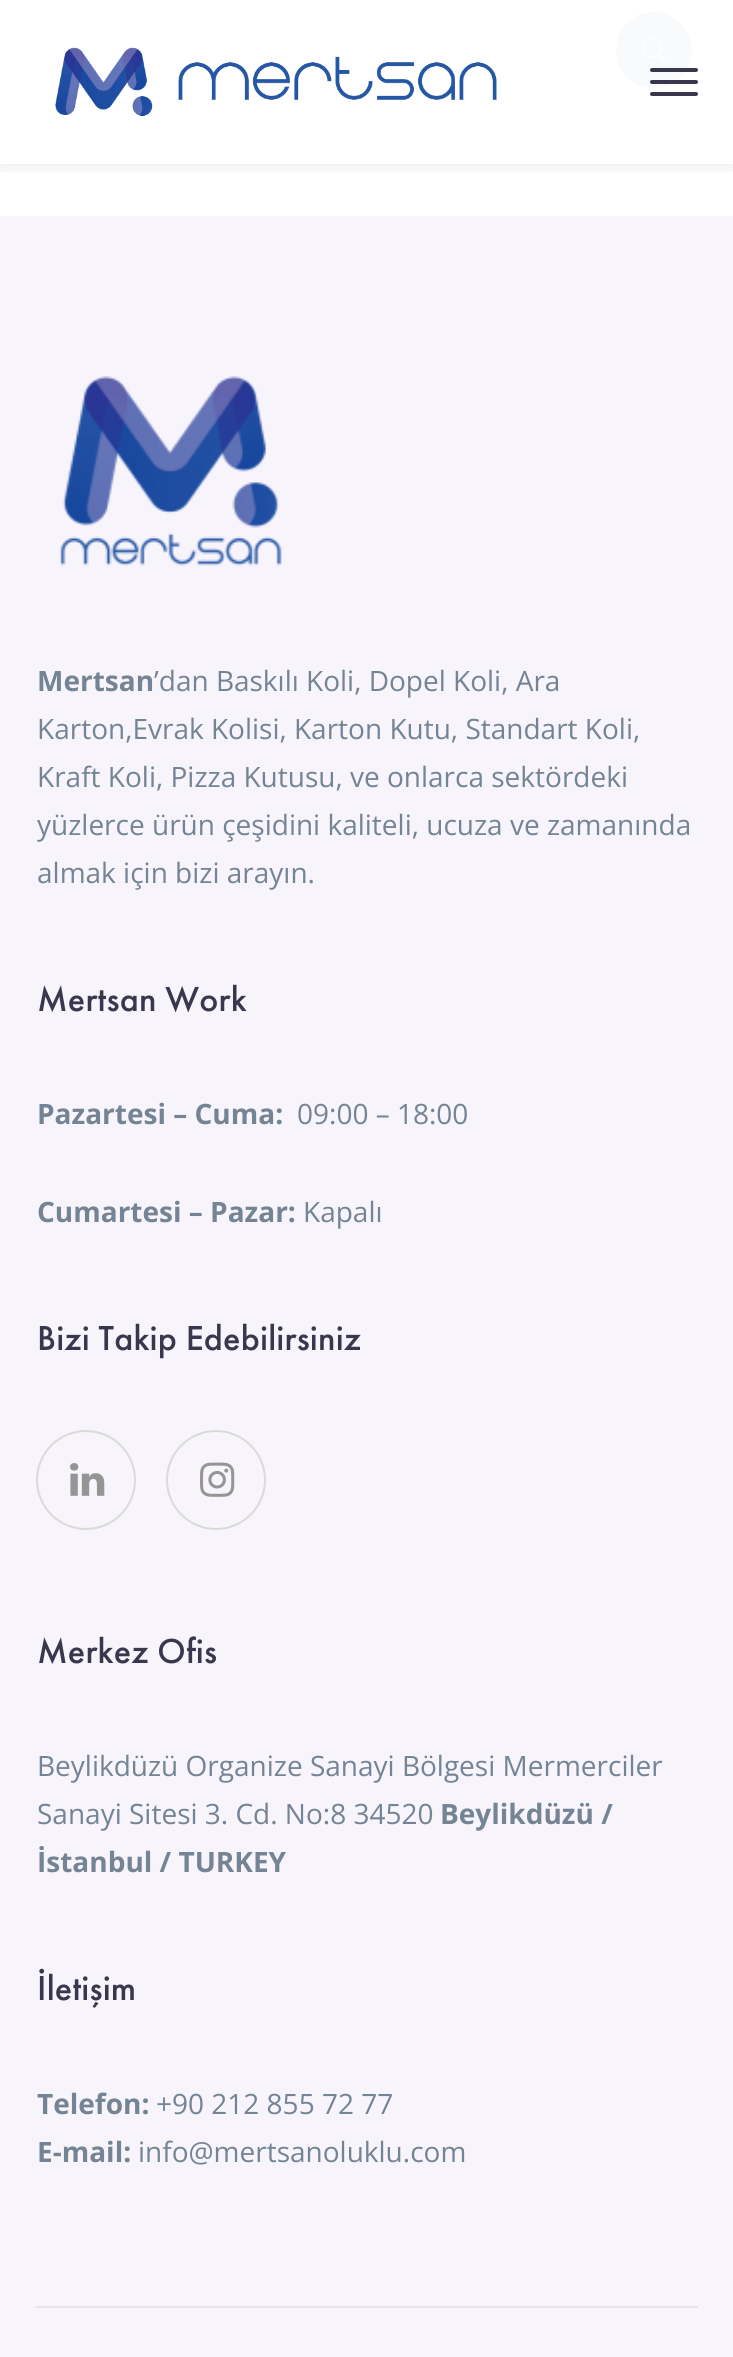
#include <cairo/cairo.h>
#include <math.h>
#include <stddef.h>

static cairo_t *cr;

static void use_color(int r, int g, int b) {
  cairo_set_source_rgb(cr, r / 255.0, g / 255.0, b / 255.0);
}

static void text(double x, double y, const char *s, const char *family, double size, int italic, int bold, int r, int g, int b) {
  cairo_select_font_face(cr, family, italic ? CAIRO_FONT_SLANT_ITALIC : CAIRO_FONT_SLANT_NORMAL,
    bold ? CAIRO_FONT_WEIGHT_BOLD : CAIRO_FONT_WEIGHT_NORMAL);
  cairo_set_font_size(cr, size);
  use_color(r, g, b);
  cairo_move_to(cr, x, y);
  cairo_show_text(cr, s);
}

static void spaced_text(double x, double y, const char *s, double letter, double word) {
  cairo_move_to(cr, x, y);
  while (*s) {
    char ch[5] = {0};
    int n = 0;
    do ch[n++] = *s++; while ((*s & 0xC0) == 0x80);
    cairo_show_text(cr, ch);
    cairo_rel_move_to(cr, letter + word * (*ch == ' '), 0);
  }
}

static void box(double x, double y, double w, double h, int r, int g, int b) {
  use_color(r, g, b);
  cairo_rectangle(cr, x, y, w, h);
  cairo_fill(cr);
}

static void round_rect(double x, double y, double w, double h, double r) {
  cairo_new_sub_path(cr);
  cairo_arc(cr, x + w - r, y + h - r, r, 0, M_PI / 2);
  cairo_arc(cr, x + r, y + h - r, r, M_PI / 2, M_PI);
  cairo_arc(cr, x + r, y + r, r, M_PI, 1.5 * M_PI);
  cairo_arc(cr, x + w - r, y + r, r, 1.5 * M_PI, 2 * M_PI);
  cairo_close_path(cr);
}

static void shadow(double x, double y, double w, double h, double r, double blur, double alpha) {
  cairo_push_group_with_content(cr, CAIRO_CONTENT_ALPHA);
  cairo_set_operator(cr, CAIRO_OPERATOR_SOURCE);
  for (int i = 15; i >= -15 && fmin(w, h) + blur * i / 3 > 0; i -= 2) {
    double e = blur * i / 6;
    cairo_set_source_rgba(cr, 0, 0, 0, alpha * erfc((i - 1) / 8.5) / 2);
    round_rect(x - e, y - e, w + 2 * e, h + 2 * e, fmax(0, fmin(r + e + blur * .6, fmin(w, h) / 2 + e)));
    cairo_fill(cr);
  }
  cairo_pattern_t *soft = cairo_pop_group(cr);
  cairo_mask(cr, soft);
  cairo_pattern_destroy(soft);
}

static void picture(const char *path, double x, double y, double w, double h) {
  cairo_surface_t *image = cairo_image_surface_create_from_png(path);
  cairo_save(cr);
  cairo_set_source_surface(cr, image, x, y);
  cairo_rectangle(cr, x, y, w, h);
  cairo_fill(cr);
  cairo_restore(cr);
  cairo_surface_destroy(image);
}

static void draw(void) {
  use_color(255, 255, 255);
  cairo_paint(cr);
  use_color(249, 250, 252);
  cairo_arc(cr, 654, 50, 38, 0, 2 * M_PI);
  cairo_fill(cr);
  picture("img_02.png", 641, 37, 26, 26);
  cairo_save(cr);
  cairo_rectangle(cr, 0, 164, 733, 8);
  cairo_clip(cr);
  use_color(0, 0, 0);
  shadow(0, 0, 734, 164, 0, 10, 0.1);
  cairo_restore(cr);
  picture("img_01.png", 55, 47, 442, 70);
  use_color(57, 55, 77);
  round_rect(650, 68, 48, 4, 2);
  cairo_fill(cr);
  round_rect(650, 80, 48, 4, 2);
  cairo_fill(cr);
  round_rect(650, 92, 48, 4, 2);
  cairo_fill(cr);
  box(0, 216, 733, 2141, 247, 244, 251);
  box(36, 2306, 662, 2, 230, 227, 233);
  picture("img_03.png", 60, 376, 222, 190);
  cairo_arc(cr, 86, 1480, 49, 0, 2 * M_PI);
  use_color(218, 218, 218);
  cairo_stroke(cr);
  picture("img_04.png", 70, 1463, 35, 33);
  cairo_arc(cr, 216, 1480, 49, 0, 2 * M_PI);
  cairo_stroke(cr);
  picture("img_05.png", 200, 1462, 35, 35);
  text(37, 691, "Mertsan", "Open Sans", 28, 0, 1, 116, 132, 148);
  text(154, 691, "’dan Baskılı Koli, Dopel Koli, Ara", "Open Sans", 28, 0, 0, 116, 132, 148);
  text(37, 739, "Karton,Evrak Kolisi, Karton Kutu, Standart Koli,", "Open Sans", 28, 0, 0, 116, 132, 148);
  text(37, 787, "Kraft Koli, Pizza Kutusu, ve onlarca sektördeki", "Open Sans", 28, 0, 0, 116, 132, 148);
  text(37, 835, "yüzlerce ürün çeşidini kaliteli, ucuza ve zamanında", "Open Sans", 28, 0, 0, 116, 132, 148);
  text(37, 883, "almak için bizi arayın.", "Open Sans", 28, 0, 0, 116, 132, 148);
  cairo_select_font_face(cr, "Futura PT Medium", CAIRO_FONT_SLANT_NORMAL, CAIRO_FONT_WEIGHT_NORMAL);
  cairo_set_font_size(cr, 36);
  use_color(57, 55, 77);
  spaced_text(37, 1011, "Mertsan Work", 0.2, 0);
  text(37, 1124, "Pazartesi – Cuma:", "Open Sans", 28, 0, 1, 116, 132, 148);
  text(297, 1124, "09:00 – 18:00", "Open Sans", 28, 0, 0, 116, 132, 148);
  text(37, 1222, "Cumartesi – Pazar:", "Open Sans", 28, 0, 1, 116, 132, 148);
  text(303, 1222, "Kapalı", "Open Sans", 28, 0, 0, 116, 132, 148);
  cairo_select_font_face(cr, "Futura PT Medium", CAIRO_FONT_SLANT_NORMAL, CAIRO_FONT_WEIGHT_NORMAL);
  cairo_set_font_size(cr, 36);
  use_color(57, 55, 77);
  spaced_text(37, 1350, "Bizi Takip Edebilirsiniz", 0.2, 0);
  spaced_text(37, 1663, "Merkez Ofis", 0.2, 0);
  text(37, 1776, "Beylikdüzü Organize Sanayi Bölgesi Mermerciler", "Open Sans", 28, 0, 0, 116, 132, 148);
  text(37, 1824, "Sanayi Sitesi 3. Cd. No:8 34520", "Open Sans", 28, 0, 0, 116, 132, 148);
  text(440, 1824, "Beylikdüzü /", "Open Sans", 28, 0, 1, 116, 132, 148);
  text(37, 1872, "İstanbul / TURKEY", "Open Sans", 28, 0, 1, 116, 132, 148);
  cairo_select_font_face(cr, "Futura PT Medium", CAIRO_FONT_SLANT_NORMAL, CAIRO_FONT_WEIGHT_NORMAL);
  cairo_set_font_size(cr, 36);
  use_color(57, 55, 77);
  spaced_text(37, 2000, "İletişim", 0.2, 0);
  text(37, 2114, "Telefon:", "Open Sans", 28, 0, 1, 116, 132, 148);
  text(156, 2114, "+90 212 855 72 77", "Open Sans", 28, 0, 0, 116, 132, 148);
  text(37, 2162, "E-mail:", "Open Sans", 28, 0, 1, 116, 132, 148);
  text(138, 2162, "info@mertsanoluklu.com", "Open Sans", 28, 0, 0, 116, 132, 148);
}

int main(void) {
  cairo_surface_t *surface = cairo_image_surface_create(CAIRO_FORMAT_RGB24, 733, 2357);
  cr = cairo_create(surface);
  cairo_font_options_t *options = cairo_font_options_create();
  cairo_font_options_set_hint_metrics(options, CAIRO_HINT_METRICS_OFF);
  cairo_font_options_set_hint_style(options, CAIRO_HINT_STYLE_NONE);
  cairo_set_font_options(cr, options);
  cairo_set_miter_limit(cr, 4);
  draw();
  cairo_surface_write_to_png(surface, "out.png");
  cairo_font_options_destroy(options);
  cairo_destroy(cr);
  cairo_surface_destroy(surface);
  return 0;
}
